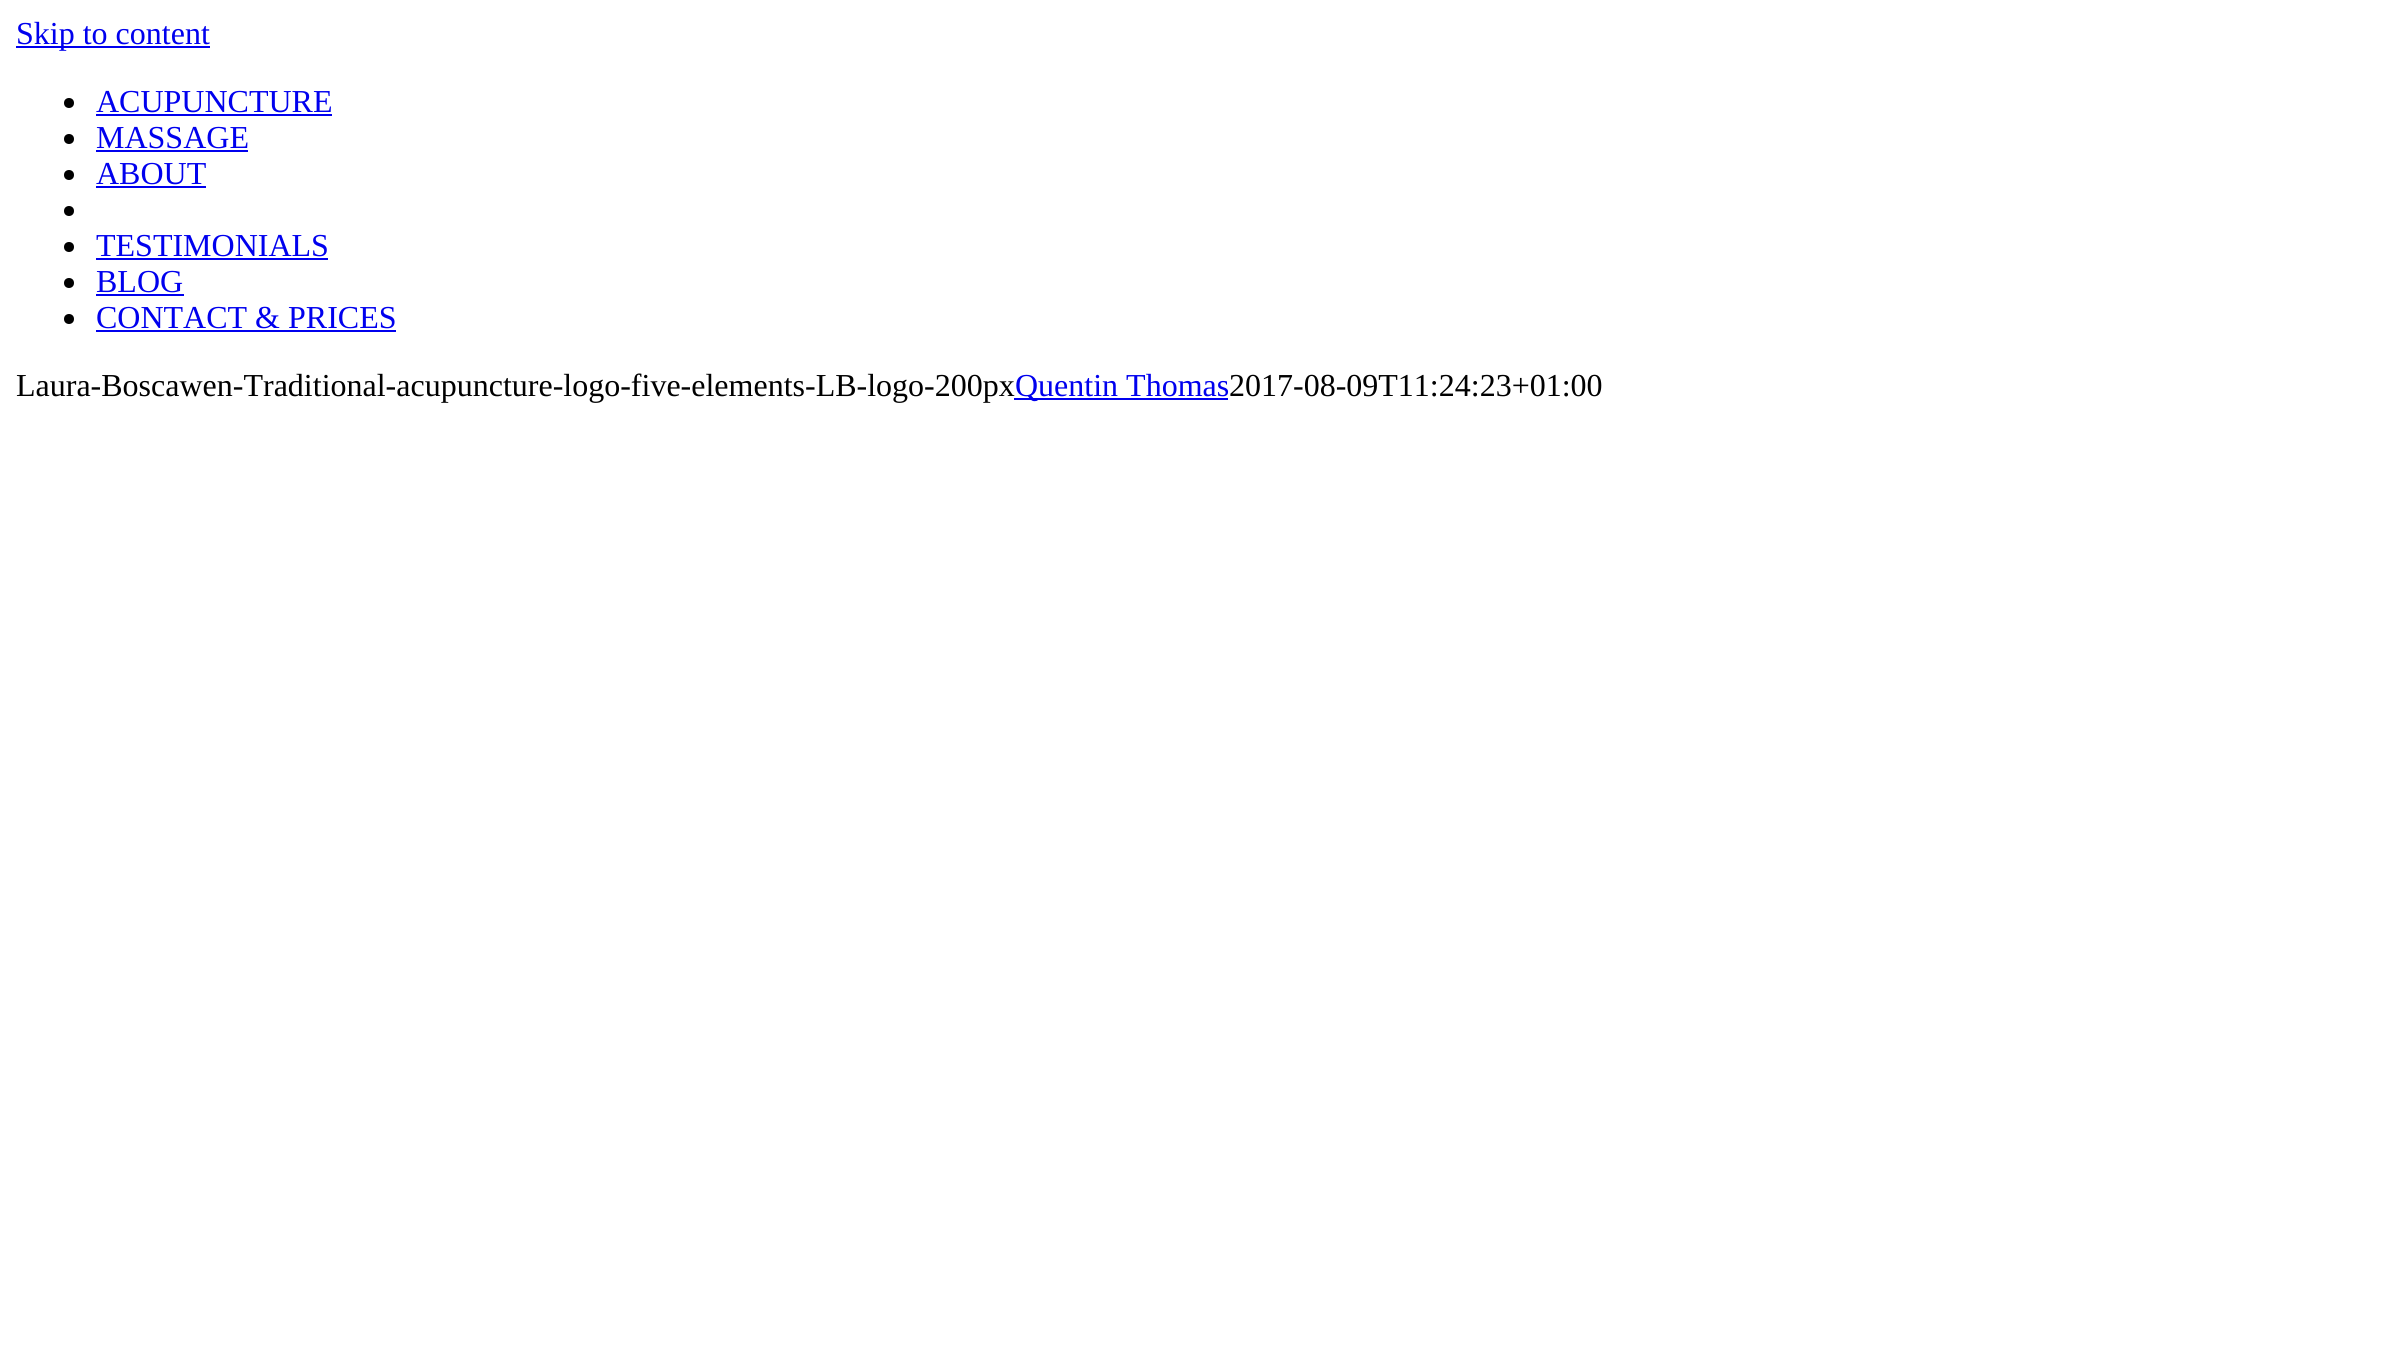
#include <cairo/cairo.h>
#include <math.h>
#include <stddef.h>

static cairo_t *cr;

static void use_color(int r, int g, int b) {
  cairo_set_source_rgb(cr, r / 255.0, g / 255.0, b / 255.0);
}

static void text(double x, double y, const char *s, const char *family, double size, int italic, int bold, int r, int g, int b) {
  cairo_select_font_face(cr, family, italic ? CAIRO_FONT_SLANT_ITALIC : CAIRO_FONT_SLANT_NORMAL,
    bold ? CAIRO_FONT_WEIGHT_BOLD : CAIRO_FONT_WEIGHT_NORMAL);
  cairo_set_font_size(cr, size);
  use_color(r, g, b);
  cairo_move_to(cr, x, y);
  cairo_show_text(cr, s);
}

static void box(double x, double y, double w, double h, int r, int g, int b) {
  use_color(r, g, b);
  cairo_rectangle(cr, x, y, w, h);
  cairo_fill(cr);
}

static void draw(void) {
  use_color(255, 255, 255);
  cairo_paint(cr);
  box(16, 46, 194, 2, 0, 0, 238);
  use_color(0, 0, 0);
  cairo_arc(cr, 69, 103, 5, 0, 2 * M_PI);
  cairo_fill(cr);
  box(96, 114, 236, 2, 0, 0, 238);
  use_color(0, 0, 0);
  cairo_arc(cr, 69, 139, 5, 0, 2 * M_PI);
  cairo_fill(cr);
  box(96, 150, 152, 2, 0, 0, 238);
  use_color(0, 0, 0);
  cairo_arc(cr, 69, 175, 5, 0, 2 * M_PI);
  cairo_fill(cr);
  box(96, 186, 110, 2, 0, 0, 238);
  use_color(0, 0, 0);
  cairo_arc(cr, 69, 211, 5, 0, 2 * M_PI);
  cairo_fill(cr);
  cairo_arc(cr, 69, 247, 5, 0, 2 * M_PI);
  cairo_fill(cr);
  box(96, 258, 232, 2, 0, 0, 238);
  use_color(0, 0, 0);
  cairo_arc(cr, 69, 283, 5, 0, 2 * M_PI);
  cairo_fill(cr);
  box(96, 294, 88, 2, 0, 0, 238);
  use_color(0, 0, 0);
  cairo_arc(cr, 69, 319, 5, 0, 2 * M_PI);
  cairo_fill(cr);
  box(96, 330, 300, 2, 0, 0, 238);
  text(16, 44, "Skip to content", "Liberation Serif", 32, 0, 0, 0, 0, 238);
  text(96, 112, "ACUPUNCTURE", "Liberation Serif", 32, 0, 0, 0, 0, 238);
  text(96, 148, "MASSAGE", "Liberation Serif", 32, 0, 0, 0, 0, 238);
  text(96, 184, "ABOUT", "Liberation Serif", 32, 0, 0, 0, 0, 238);
  text(96, 256, "TESTIMONIALS", "Liberation Serif", 32, 0, 0, 0, 0, 238);
  text(96, 292, "BLOG", "Liberation Serif", 32, 0, 0, 0, 0, 238);
  text(96, 328, "CONTACT & PRICES", "Liberation Serif", 32, 0, 0, 0, 0, 238);
  text(16, 396, "Laura-Boscawen-Traditional-acupuncture-logo-five-elements-LB-logo-200px", "Liberation Serif", 32, 0, 0, 0, 0, 0);
  box(1014, 398, 214, 2, 0, 0, 238);
  text(1015, 396, "Quentin Thomas", "Liberation Serif", 32, 0, 0, 0, 0, 238);
  text(1229, 396, "2017-08-09T11:24:23+01:00", "Liberation Serif", 32, 0, 0, 0, 0, 0);
}

int main(void) {
  cairo_surface_t *surface = cairo_image_surface_create(CAIRO_FORMAT_RGB24, 2408, 1370);
  cr = cairo_create(surface);
  cairo_font_options_t *options = cairo_font_options_create();
  cairo_font_options_set_hint_metrics(options, CAIRO_HINT_METRICS_OFF);
  cairo_font_options_set_hint_style(options, CAIRO_HINT_STYLE_NONE);
  cairo_set_font_options(cr, options);
  cairo_set_miter_limit(cr, 4);
  draw();
  cairo_surface_write_to_png(surface, "out.png");
  cairo_font_options_destroy(options);
  cairo_destroy(cr);
  cairo_surface_destroy(surface);
  return 0;
}
